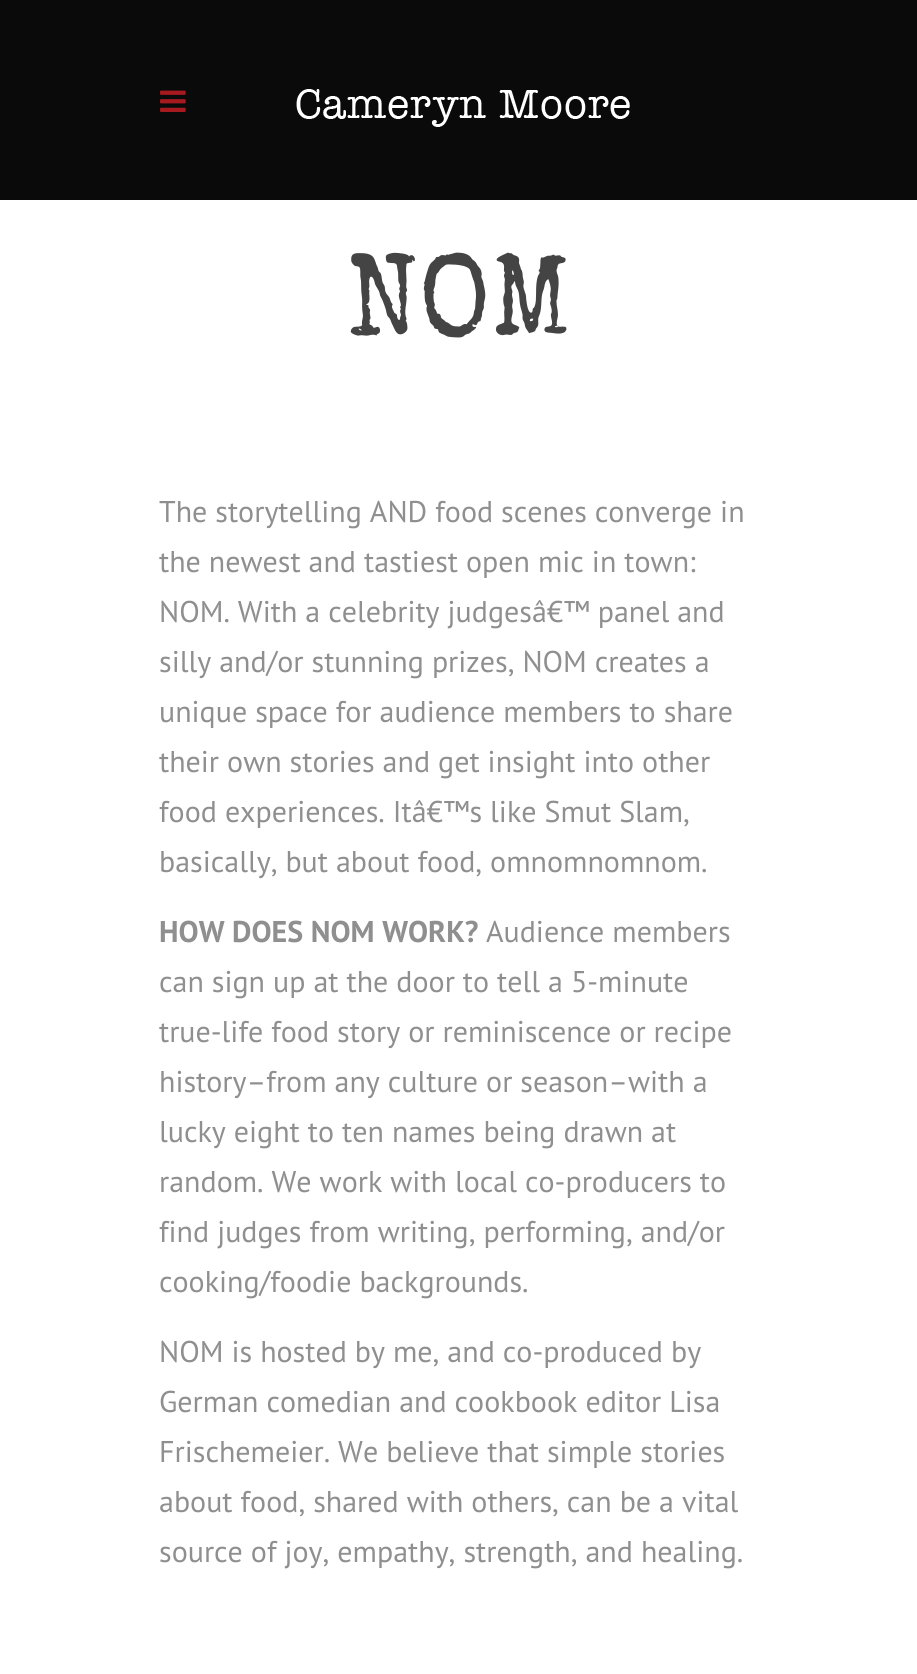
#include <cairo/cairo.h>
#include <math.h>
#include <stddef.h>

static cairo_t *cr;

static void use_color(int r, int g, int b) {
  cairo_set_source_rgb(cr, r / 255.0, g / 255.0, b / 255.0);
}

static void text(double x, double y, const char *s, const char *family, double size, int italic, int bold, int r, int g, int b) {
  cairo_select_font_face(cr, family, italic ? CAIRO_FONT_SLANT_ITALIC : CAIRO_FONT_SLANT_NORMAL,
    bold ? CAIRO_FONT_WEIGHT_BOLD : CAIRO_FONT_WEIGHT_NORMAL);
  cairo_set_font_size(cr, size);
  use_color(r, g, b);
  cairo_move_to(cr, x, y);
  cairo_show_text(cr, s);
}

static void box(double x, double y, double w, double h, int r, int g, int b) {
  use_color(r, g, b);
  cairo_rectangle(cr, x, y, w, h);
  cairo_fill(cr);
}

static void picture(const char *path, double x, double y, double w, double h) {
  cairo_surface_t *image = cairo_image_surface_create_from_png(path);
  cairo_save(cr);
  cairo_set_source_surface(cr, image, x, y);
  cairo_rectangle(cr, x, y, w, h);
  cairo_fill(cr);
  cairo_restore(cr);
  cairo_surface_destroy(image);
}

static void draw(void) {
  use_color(255, 255, 255);
  cairo_paint(cr);
  box(0, 0, 917, 200, 10, 10, 10);
  picture("img_01.png", 160, 90, 26, 22);
  picture("img_02.png", 296, 89, 334, 38);
  text(346, 334, "NOM", "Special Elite", 116, 0, 0, 68, 68, 68);
  text(159, 522, "The storytelling AND food scenes converge in", "PT Sans", 30, 0, 0, 143, 143, 143);
  text(159, 572, "the newest and tastiest open mic in town:", "PT Sans", 30, 0, 0, 143, 143, 143);
  text(159, 622, "NOM. With a celebrity judgesâ€™ panel and", "PT Sans", 30, 0, 0, 143, 143, 143);
  text(159, 672, "silly and/or stunning prizes, NOM creates a", "PT Sans", 30, 0, 0, 143, 143, 143);
  text(159, 722, "unique space for audience members to share", "PT Sans", 30, 0, 0, 143, 143, 143);
  text(159, 772, "their own stories and get insight into other", "PT Sans", 30, 0, 0, 143, 143, 143);
  text(159, 822, "food experiences. Itâ€™s like Smut Slam,", "PT Sans", 30, 0, 0, 143, 143, 143);
  text(159, 872, "basically, but about food, omnomnomnom.", "PT Sans", 30, 0, 0, 143, 143, 143);
  text(159, 942, "HOW DOES NOM WORK?", "PT Sans", 30, 0, 1, 143, 143, 143);
  text(486, 942, "Audience members", "PT Sans", 30, 0, 0, 143, 143, 143);
  text(159, 992, "can sign up at the door to tell a 5-minute", "PT Sans", 30, 0, 0, 143, 143, 143);
  text(159, 1042, "true-life food story or reminiscence or recipe", "PT Sans", 30, 0, 0, 143, 143, 143);
  text(159, 1092, "history–from any culture or season–with a", "PT Sans", 30, 0, 0, 143, 143, 143);
  text(159, 1142, "lucky eight to ten names being drawn at", "PT Sans", 30, 0, 0, 143, 143, 143);
  text(159, 1192, "random. We work with local co-producers to", "PT Sans", 30, 0, 0, 143, 143, 143);
  text(159, 1242, "find judges from writing, performing, and/or", "PT Sans", 30, 0, 0, 143, 143, 143);
  text(159, 1292, "cooking/foodie backgrounds.", "PT Sans", 30, 0, 0, 143, 143, 143);
  text(159, 1362, "NOM is hosted by me, and co-produced by", "PT Sans", 30, 0, 0, 143, 143, 143);
  text(159, 1412, "German comedian and cookbook editor Lisa", "PT Sans", 30, 0, 0, 143, 143, 143);
  text(159, 1462, "Frischemeier. We believe that simple stories", "PT Sans", 30, 0, 0, 143, 143, 143);
  text(159, 1512, "about food, shared with others, can be a vital", "PT Sans", 30, 0, 0, 143, 143, 143);
  text(159, 1562, "source of joy, empathy, strength, and healing.", "PT Sans", 30, 0, 0, 143, 143, 143);
}

int main(void) {
  cairo_surface_t *surface = cairo_image_surface_create(CAIRO_FORMAT_RGB24, 917, 1674);
  cr = cairo_create(surface);
  cairo_font_options_t *options = cairo_font_options_create();
  cairo_font_options_set_hint_metrics(options, CAIRO_HINT_METRICS_OFF);
  cairo_font_options_set_hint_style(options, CAIRO_HINT_STYLE_NONE);
  cairo_set_font_options(cr, options);
  cairo_set_miter_limit(cr, 4);
  draw();
  cairo_surface_write_to_png(surface, "out.png");
  cairo_font_options_destroy(options);
  cairo_destroy(cr);
  cairo_surface_destroy(surface);
  return 0;
}
